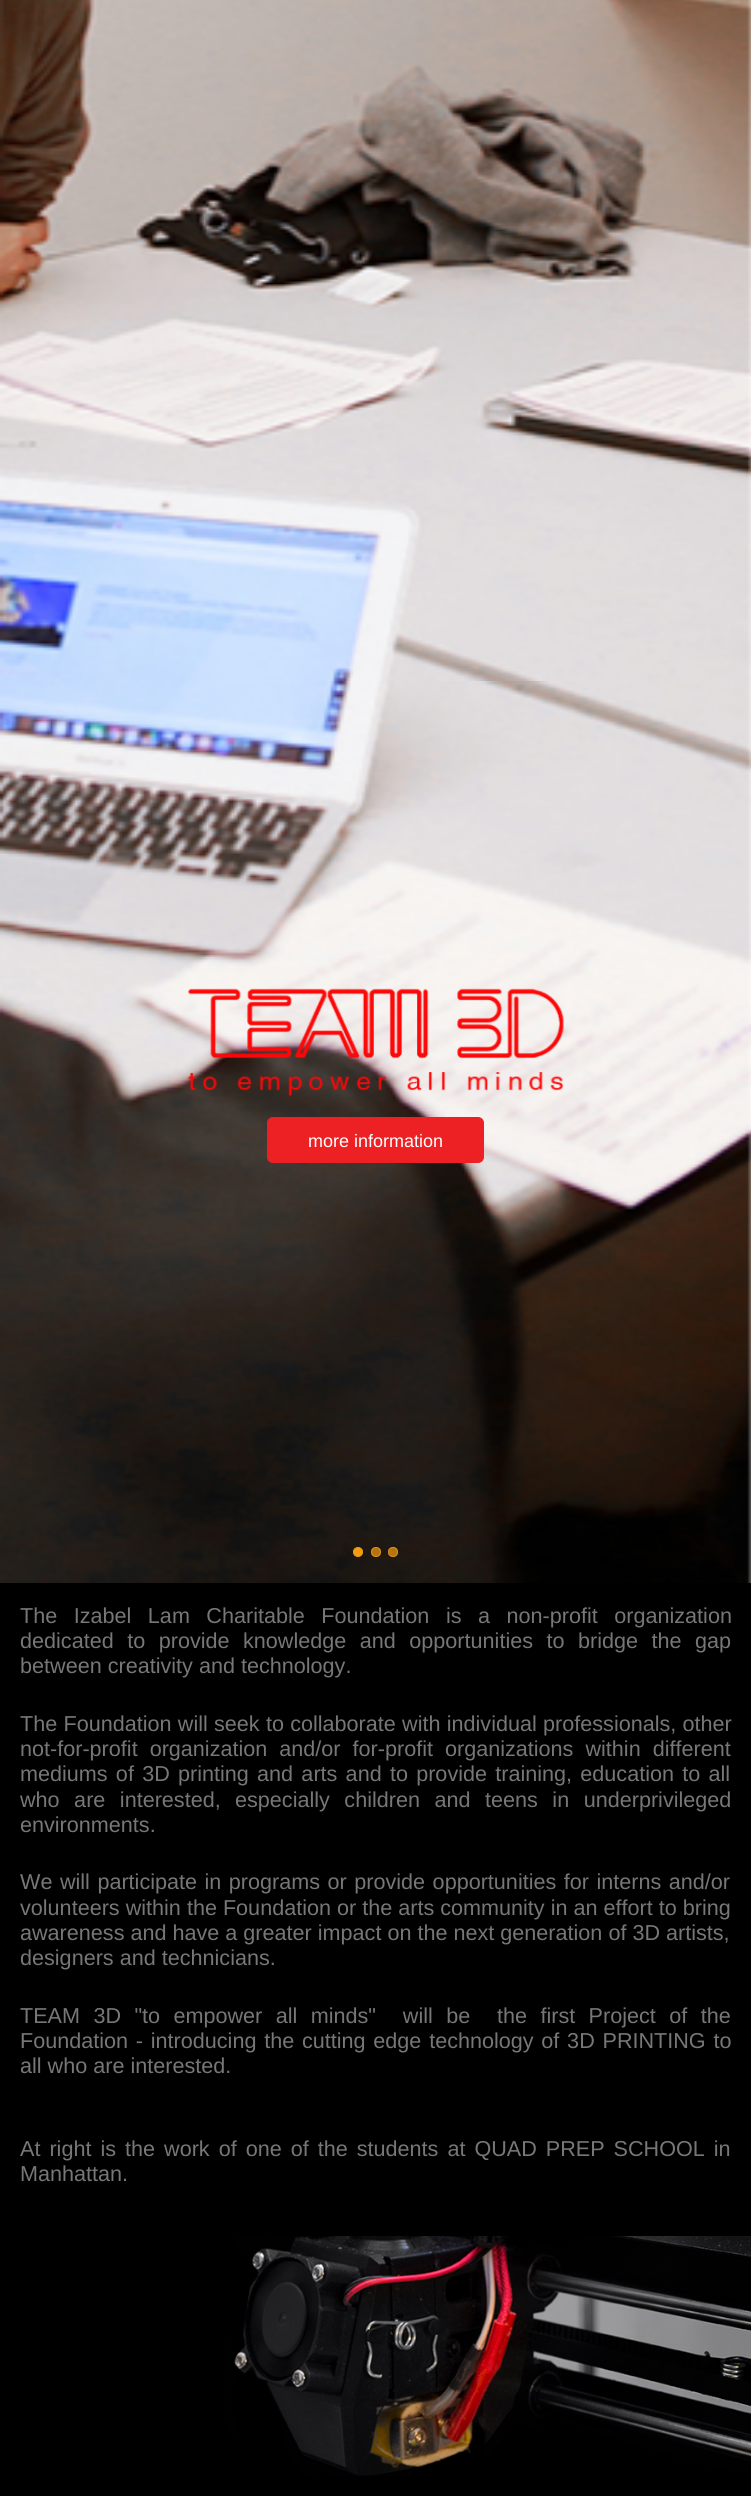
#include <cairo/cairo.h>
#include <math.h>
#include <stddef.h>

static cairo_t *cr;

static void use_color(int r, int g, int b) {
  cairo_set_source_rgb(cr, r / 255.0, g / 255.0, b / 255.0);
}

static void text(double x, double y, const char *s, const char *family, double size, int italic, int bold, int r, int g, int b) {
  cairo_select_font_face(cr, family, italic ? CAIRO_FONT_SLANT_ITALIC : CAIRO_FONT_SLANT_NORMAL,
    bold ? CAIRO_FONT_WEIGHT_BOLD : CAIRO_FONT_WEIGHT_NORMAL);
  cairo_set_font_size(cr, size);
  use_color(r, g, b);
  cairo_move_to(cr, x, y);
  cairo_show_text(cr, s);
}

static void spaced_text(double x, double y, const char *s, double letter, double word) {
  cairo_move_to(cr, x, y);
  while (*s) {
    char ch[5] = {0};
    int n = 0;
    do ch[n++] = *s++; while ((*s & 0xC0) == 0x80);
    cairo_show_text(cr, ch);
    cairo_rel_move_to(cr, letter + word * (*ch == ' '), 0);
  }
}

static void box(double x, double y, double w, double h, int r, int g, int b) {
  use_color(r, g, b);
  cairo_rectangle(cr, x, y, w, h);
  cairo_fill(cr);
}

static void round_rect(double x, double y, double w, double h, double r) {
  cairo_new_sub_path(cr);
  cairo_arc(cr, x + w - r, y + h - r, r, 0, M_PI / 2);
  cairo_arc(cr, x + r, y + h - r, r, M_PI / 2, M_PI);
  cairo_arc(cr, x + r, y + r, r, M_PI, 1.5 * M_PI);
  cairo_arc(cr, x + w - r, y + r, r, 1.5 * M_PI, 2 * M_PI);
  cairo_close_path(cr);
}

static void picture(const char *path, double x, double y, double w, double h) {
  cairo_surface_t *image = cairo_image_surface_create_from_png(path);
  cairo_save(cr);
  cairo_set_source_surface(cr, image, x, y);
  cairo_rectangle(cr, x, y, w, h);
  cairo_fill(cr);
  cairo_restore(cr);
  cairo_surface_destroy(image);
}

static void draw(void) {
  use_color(255, 255, 255);
  cairo_paint(cr);
  picture("img_01.png", 0, 0, 751, 1583);
  picture("img_02.png", 188, 988, 376, 109);
  use_color(237, 32, 36);
  round_rect(267.5, 1117.5, 216, 45, 5.5);
  cairo_fill_preserve(cr);
  cairo_set_line_width(cr, 1);
  cairo_stroke(cr);
  use_color(243, 156, 18);
  cairo_arc(cr, 358, 1552, 4.5, 0, 2 * M_PI);
  cairo_fill_preserve(cr);
  cairo_stroke(cr);
  cairo_set_source_rgba(cr, 0.953, 0.612, 0.071, 0.7);
  cairo_arc(cr, 376, 1552, 5, 0, 2 * M_PI);
  cairo_fill(cr);
  cairo_arc(cr, 376, 1552, 4.5, 0, 2 * M_PI);
  cairo_stroke(cr);
  cairo_arc(cr, 393, 1552, 5, 0, 2 * M_PI);
  cairo_fill(cr);
  cairo_arc(cr, 393, 1552, 4.5, 0, 2 * M_PI);
  cairo_stroke(cr);
  box(0, 1583, 751, 913, 0, 0, 0);
  picture("img_03.png", 225, 2236, 526, 240);
  text(308, 1147, "more information", "Liberation Sans", 18, 0, 0, 255, 255, 255);
  cairo_set_font_size(cr, 21.6);
  use_color(119, 119, 119);
  spaced_text(20, 1623, "The Izabel Lam Charitable Foundation is a non-profit organization", 0, 10.5);
  spaced_text(20, 1648, "dedicated to provide knowledge and opportunities to bridge the gap", 0, 7.5);
  text(20, 1673, "between creativity and technology.", "Liberation Sans", 21.6, 0, 0, 119, 119, 119);
  spaced_text(20, 1731, "The Foundation will seek to collaborate with individual professionals, other", 0, 0.25);
  spaced_text(20, 1756, "not-for-profit organization and/or for-profit organizations within different", 0, 6);
  spaced_text(20, 1781, "mediums of 3D printing and arts and to provide training, education to all", 0, 2.25);
  spaced_text(20, 1807, "who are interested,", 0, 8.5);
  spaced_text(235, 1807, "especially children and teens in underprivileged", 0, 8.5);
  text(20, 1832, "environments.", "Liberation Sans", 21.6, 0, 0, 119, 119, 119);
  spaced_text(20, 1889, "We will participate in programs or provide opportunities for interns and/or", 0, 1.5);
  text(20, 1915, "volunteers within the Foundation or the arts community in an effort to bring", "Liberation Sans", 21.6, 0, 0, 119, 119, 119);
  text(20, 1940, "awareness and have a greater impact on the next generation of 3D artists,", "Liberation Sans", 21.6, 0, 0, 119, 119, 119);
  text(20, 1965, "designers and technicians.", "Liberation Sans", 21.6, 0, 0, 119, 119, 119);
  spaced_text(20, 2023, "TEAM 3D \"to empower all minds\"  will be  the first Project of the", 0, 7.4);
  spaced_text(20, 2048, "Foundation - introducing the cutting edge technology of 3D PRINTING to", 0, 1.75);
  text(20, 2073, "all who are interested.", "Liberation Sans", 21.6, 0, 0, 119, 119, 119);
  spaced_text(20, 2156, "At right is the work of one of the students at QUAD PREP SCHOOL in", 0, 3);
  text(20, 2181, "Manhattan.", "Liberation Sans", 21.6, 0, 0, 119, 119, 119);
}

int main(void) {
  cairo_surface_t *surface = cairo_image_surface_create(CAIRO_FORMAT_RGB24, 751, 2496);
  cr = cairo_create(surface);
  cairo_font_options_t *options = cairo_font_options_create();
  cairo_font_options_set_hint_metrics(options, CAIRO_HINT_METRICS_OFF);
  cairo_font_options_set_hint_style(options, CAIRO_HINT_STYLE_NONE);
  cairo_set_font_options(cr, options);
  cairo_set_miter_limit(cr, 4);
  draw();
  cairo_surface_write_to_png(surface, "out.png");
  cairo_font_options_destroy(options);
  cairo_destroy(cr);
  cairo_surface_destroy(surface);
  return 0;
}
